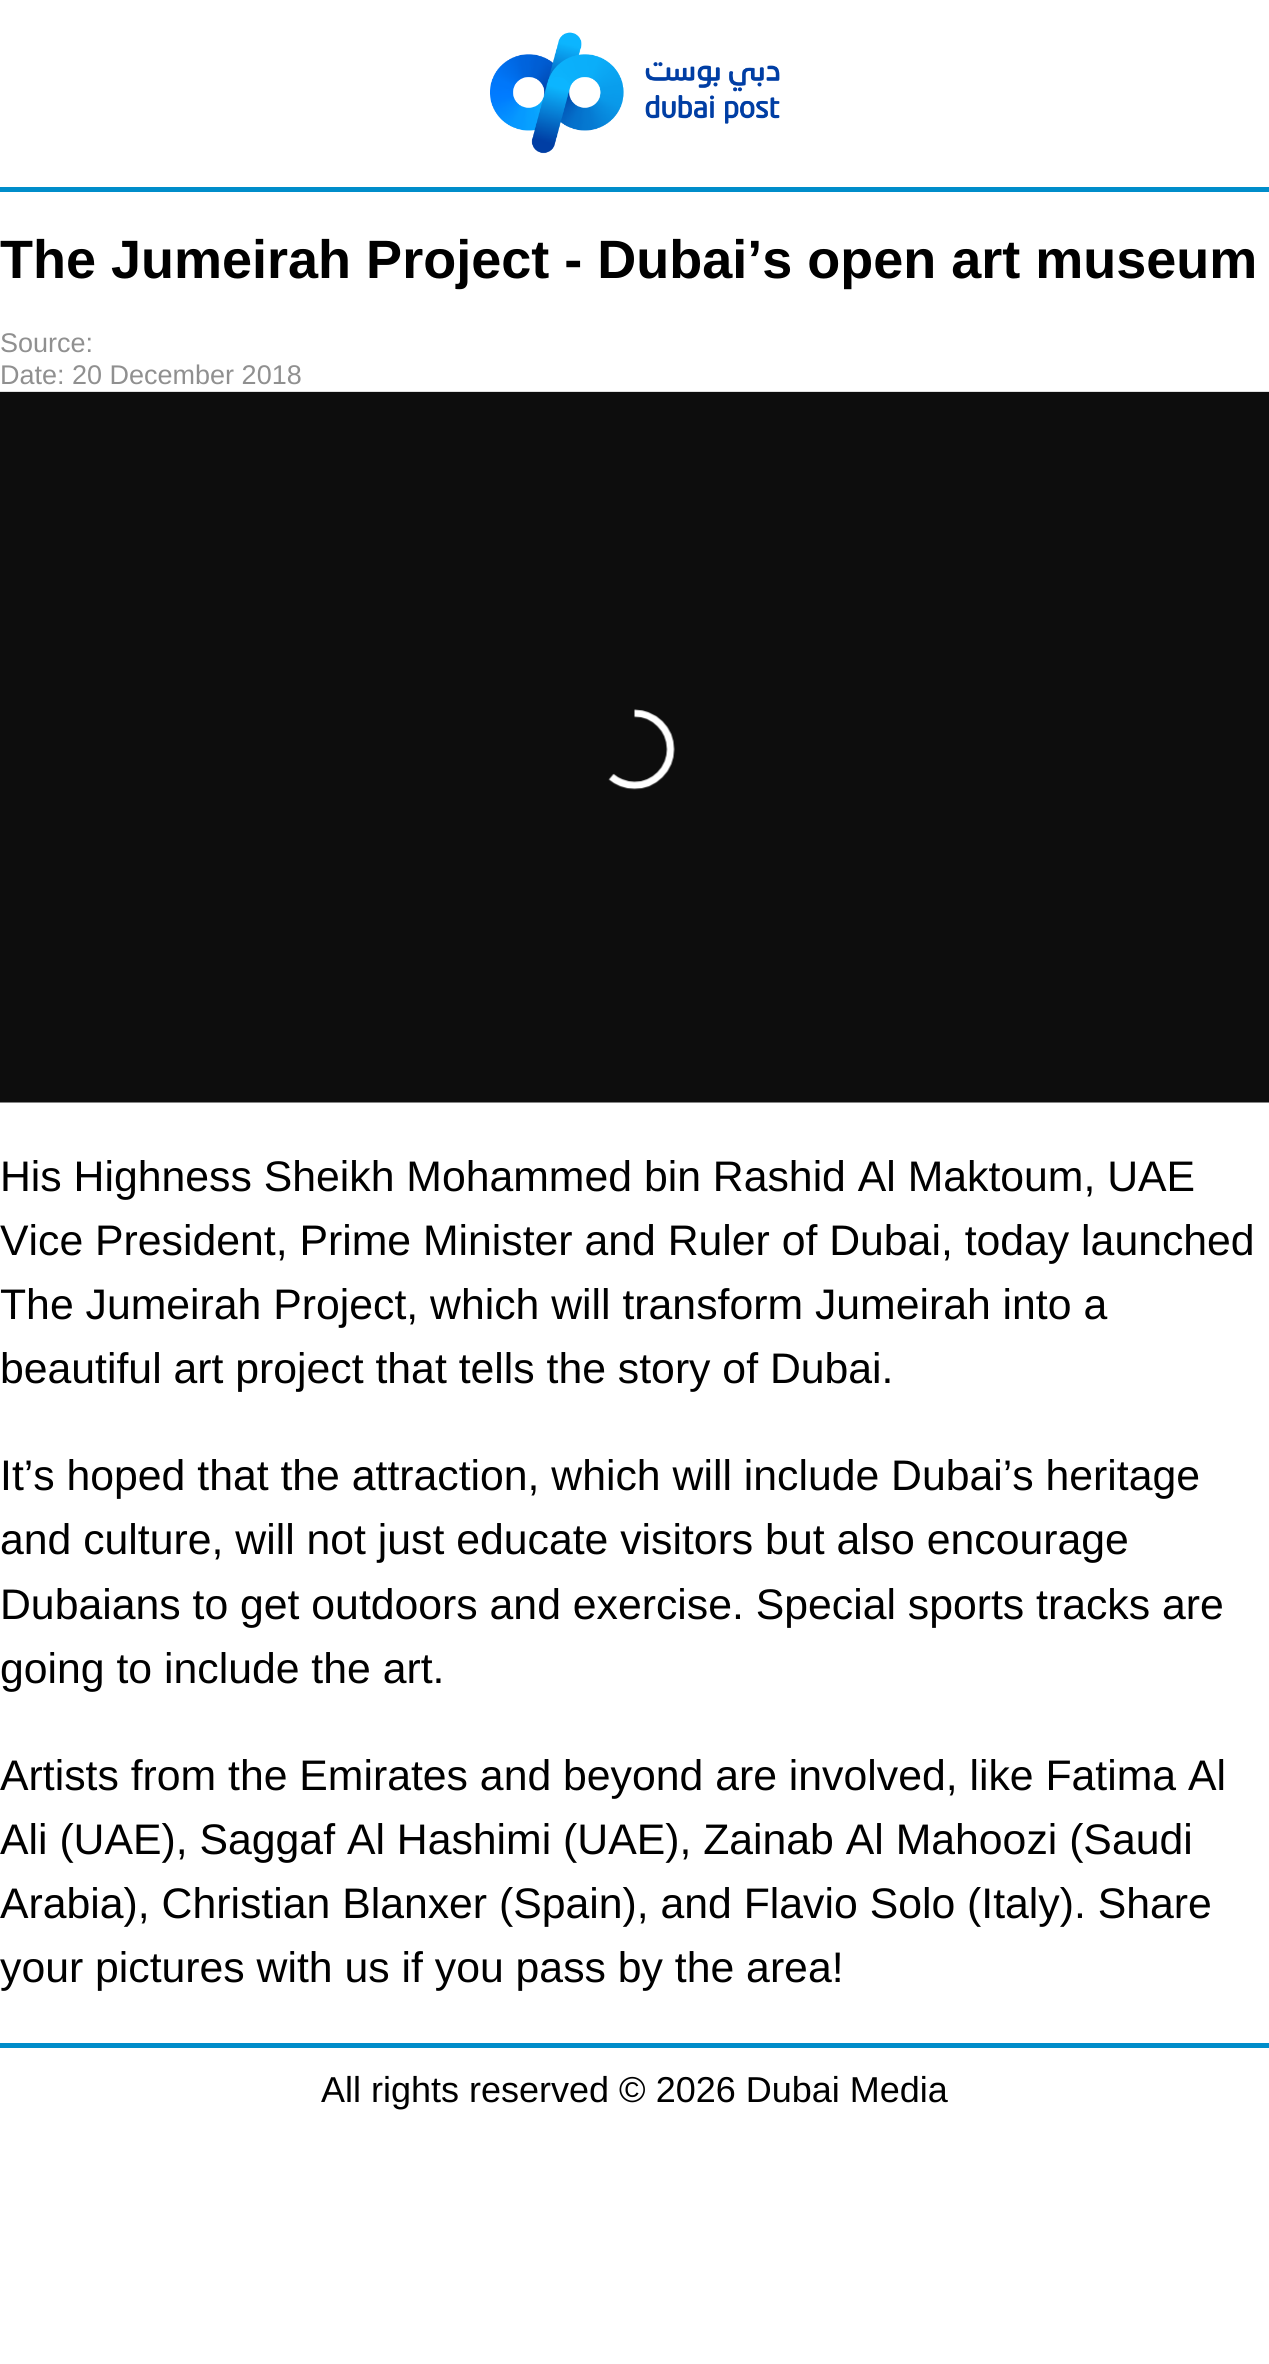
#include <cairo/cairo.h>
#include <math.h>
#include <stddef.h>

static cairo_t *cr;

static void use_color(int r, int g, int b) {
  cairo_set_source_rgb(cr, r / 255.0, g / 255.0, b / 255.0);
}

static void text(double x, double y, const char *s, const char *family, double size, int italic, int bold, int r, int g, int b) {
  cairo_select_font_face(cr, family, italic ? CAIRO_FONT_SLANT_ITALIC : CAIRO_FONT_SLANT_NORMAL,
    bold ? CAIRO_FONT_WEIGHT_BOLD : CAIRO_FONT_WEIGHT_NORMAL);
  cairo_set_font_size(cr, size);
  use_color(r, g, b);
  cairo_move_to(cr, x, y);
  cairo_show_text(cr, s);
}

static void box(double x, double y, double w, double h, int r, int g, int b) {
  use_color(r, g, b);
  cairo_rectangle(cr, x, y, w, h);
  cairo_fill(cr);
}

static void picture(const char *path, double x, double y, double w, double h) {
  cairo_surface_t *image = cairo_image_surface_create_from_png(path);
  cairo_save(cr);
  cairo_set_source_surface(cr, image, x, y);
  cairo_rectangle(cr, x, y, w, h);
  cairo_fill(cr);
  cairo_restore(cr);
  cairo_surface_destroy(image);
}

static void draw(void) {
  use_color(255, 255, 255);
  cairo_paint(cr);
  picture("img_01.png", 490, 32, 290, 122);
  box(0, 187, 1269, 5, 0, 141, 202);
  box(0, 2043, 1269, 5, 0, 141, 202);
  picture("img_02.png", 0, 391, 1269, 712);
  text(0, 278, "The Jumeirah Project - Dubai’s open art museum", "Liberation Sans", 54, 0, 1, 0, 0, 0);
  text(0, 352, "Source:", "Liberation Sans", 27, 0, 0, 144, 144, 144);
  text(0, 384, "Date: 20 December 2018", "Liberation Sans", 27, 0, 0, 144, 144, 144);
  text(0, 1191, "His Highness Sheikh Mohammed bin Rashid Al Maktoum, UAE", "Liberation Sans", 42.75, 0, 0, 0, 0, 0);
  text(0, 1255, "Vice President, Prime Minister and Ruler of Dubai, today launched", "Liberation Sans", 42.75, 0, 0, 0, 0, 0);
  text(0, 1319, "The Jumeirah Project, which will transform Jumeirah into a", "Liberation Sans", 42.75, 0, 0, 0, 0, 0);
  text(0, 1383, "beautiful art project that tells the story of Dubai.", "Liberation Sans", 42.75, 0, 0, 0, 0, 0);
  text(0, 1490, "It’s hoped that the attraction, which will include Dubai’s heritage", "Liberation Sans", 42.75, 0, 0, 0, 0, 0);
  text(0, 1554, "and culture, will not just educate visitors but also encourage", "Liberation Sans", 42.75, 0, 0, 0, 0, 0);
  text(0, 1619, "Dubaians to get outdoors and exercise. Special sports tracks are", "Liberation Sans", 42.75, 0, 0, 0, 0, 0);
  text(0, 1683, "going to include the art.", "Liberation Sans", 42.75, 0, 0, 0, 0, 0);
  text(0, 1790, "Artists from the Emirates and beyond are involved, like Fatima Al", "Liberation Sans", 42.75, 0, 0, 0, 0, 0);
  text(0, 1854, "Ali (UAE), Saggaf Al Hashimi (UAE), Zainab Al Mahoozi (Saudi", "Liberation Sans", 42.75, 0, 0, 0, 0, 0);
  text(0, 1918, "Arabia), Christian Blanxer (Spain), and Flavio Solo (Italy). Share", "Liberation Sans", 42.75, 0, 0, 0, 0, 0);
  text(0, 1982, "your pictures with us if you pass by the area!", "Liberation Sans", 42.75, 0, 0, 0, 0, 0);
  text(321, 2102, "All rights reserved © 2026 Dubai Media", "Liberation Sans", 36, 0, 0, 0, 0, 0);
}

int main(void) {
  cairo_surface_t *surface = cairo_image_surface_create(CAIRO_FORMAT_RGB24, 1269, 2364);
  cr = cairo_create(surface);
  cairo_font_options_t *options = cairo_font_options_create();
  cairo_font_options_set_hint_metrics(options, CAIRO_HINT_METRICS_OFF);
  cairo_font_options_set_hint_style(options, CAIRO_HINT_STYLE_NONE);
  cairo_set_font_options(cr, options);
  cairo_set_miter_limit(cr, 4);
  draw();
  cairo_surface_write_to_png(surface, "out.png");
  cairo_font_options_destroy(options);
  cairo_destroy(cr);
  cairo_surface_destroy(surface);
  return 0;
}
